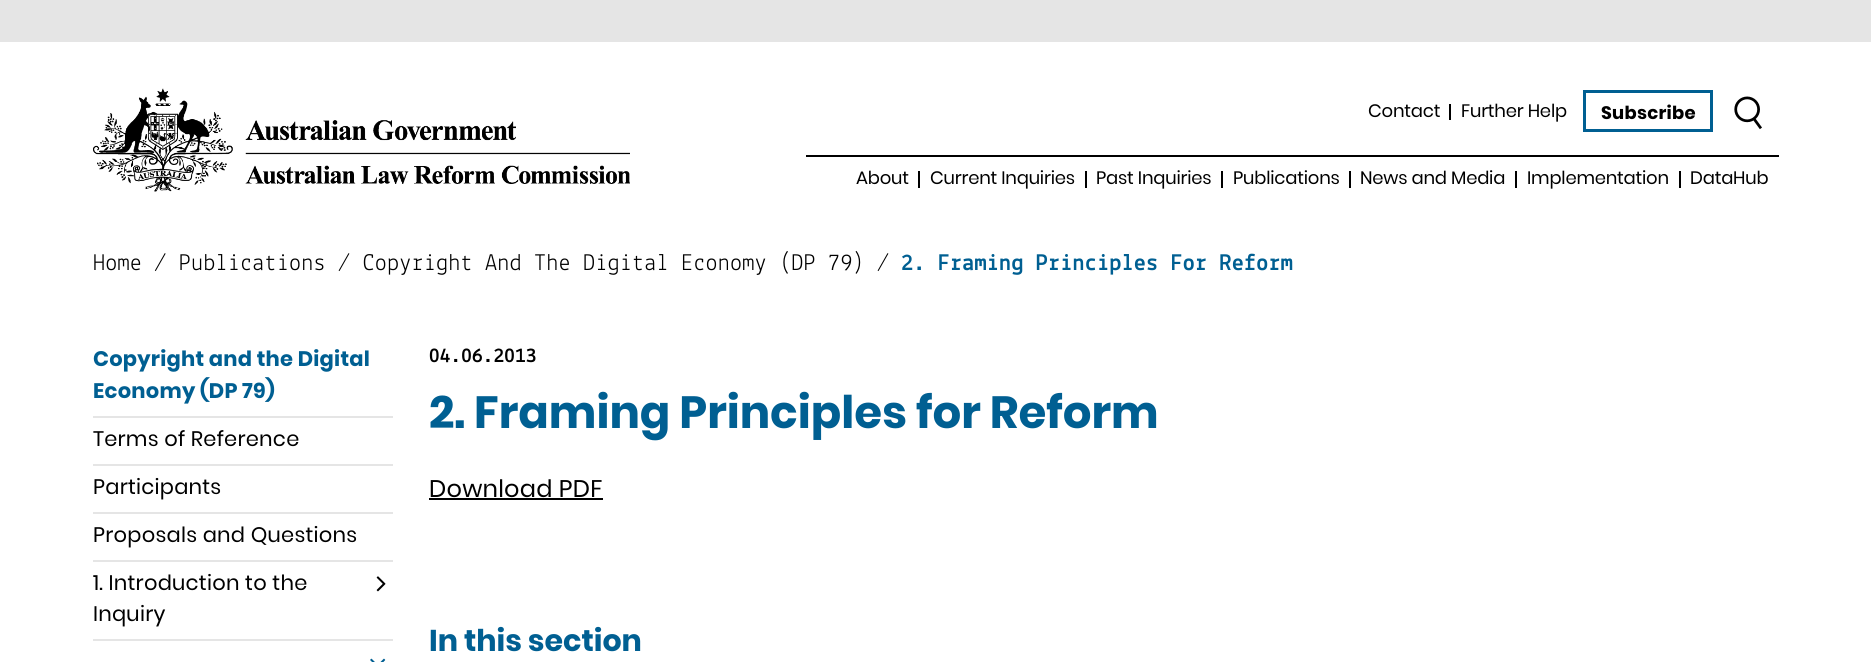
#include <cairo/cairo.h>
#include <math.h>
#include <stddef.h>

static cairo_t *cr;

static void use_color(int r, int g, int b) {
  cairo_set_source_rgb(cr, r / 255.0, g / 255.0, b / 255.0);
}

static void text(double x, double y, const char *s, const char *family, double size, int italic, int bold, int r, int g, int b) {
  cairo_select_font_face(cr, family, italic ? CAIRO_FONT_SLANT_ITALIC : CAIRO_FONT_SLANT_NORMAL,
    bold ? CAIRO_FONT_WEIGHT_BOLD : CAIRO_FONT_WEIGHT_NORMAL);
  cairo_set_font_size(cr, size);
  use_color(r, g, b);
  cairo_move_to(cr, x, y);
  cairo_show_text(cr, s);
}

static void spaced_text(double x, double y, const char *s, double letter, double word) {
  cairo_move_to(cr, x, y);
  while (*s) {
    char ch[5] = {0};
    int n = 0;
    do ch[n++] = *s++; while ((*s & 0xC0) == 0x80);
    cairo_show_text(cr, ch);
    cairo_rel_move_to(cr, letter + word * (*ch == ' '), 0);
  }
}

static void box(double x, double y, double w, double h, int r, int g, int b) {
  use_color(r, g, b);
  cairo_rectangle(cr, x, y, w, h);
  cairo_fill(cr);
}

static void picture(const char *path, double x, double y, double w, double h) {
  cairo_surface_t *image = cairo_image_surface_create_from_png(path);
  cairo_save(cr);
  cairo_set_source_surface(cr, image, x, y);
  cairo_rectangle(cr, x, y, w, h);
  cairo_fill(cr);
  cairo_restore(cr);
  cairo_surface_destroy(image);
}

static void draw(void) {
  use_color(255, 255, 255);
  cairo_paint(cr);
  box(0, 0, 1871, 42, 229, 229, 229);
  picture("img_01.png", 93, 88, 537, 104);
  box(806, 155, 973, 2, 0, 0, 0);
  box(1449, 104, 2, 16, 0, 0, 0);
  cairo_rectangle(cr, 1584.5, 91.5, 127, 39);
  use_color(0, 95, 146);
  cairo_set_line_width(cr, 3);
  cairo_stroke(cr);
  picture("img_02.png", 1734, 96, 28, 34);
  box(918, 171, 2, 17, 0, 0, 0);
  box(1085, 171, 2, 17, 0, 0, 0);
  box(1221, 171, 2, 17, 0, 0, 0);
  box(1349, 171, 2, 17, 0, 0, 0);
  box(1515, 171, 2, 17, 0, 0, 0);
  box(1679, 171, 2, 17, 0, 0, 0);
  box(93, 416, 300, 2, 229, 229, 229);
  box(93, 464, 300, 2, 229, 229, 229);
  box(93, 512, 300, 2, 229, 229, 229);
  box(93, 560, 300, 2, 229, 229, 229);
  box(93, 639, 300, 2, 229, 229, 229);
  picture("img_03.png", 376, 576, 10, 16);
  picture("img_04.png", 370, 658, 16, 4);
  box(429, 498, 174, 2, 0, 0, 0);
  cairo_select_font_face(cr, "Poppins", CAIRO_FONT_SLANT_NORMAL, CAIRO_FONT_WEIGHT_NORMAL);
  cairo_set_font_size(cr, 18);
  spaced_text(1368, 117, "Contact", -0.2, 0);
  spaced_text(1461, 117, "Further Help", -0.2, 0);
  cairo_select_font_face(cr, "Poppins", CAIRO_FONT_SLANT_NORMAL, CAIRO_FONT_WEIGHT_BOLD);
  spaced_text(1601, 119, "Subscribe", 0.25, 0);
  cairo_select_font_face(cr, "Poppins", CAIRO_FONT_SLANT_NORMAL, CAIRO_FONT_WEIGHT_NORMAL);
  spaced_text(856, 184, "About", -0.2, 0);
  spaced_text(930, 184, "Current Inquiries", -0.2, 0);
  spaced_text(1096, 184, "Past Inquiries", -0.2, 0);
  spaced_text(1233, 184, "Publications", -0.2, 0);
  spaced_text(1360, 184, "News and Media", -0.2, 0);
  spaced_text(1527, 184, "Implementation", -0.2, 0);
  spaced_text(1690, 184, "DataHub", -0.2, 0);
  cairo_select_font_face(cr, "Lekton", CAIRO_FONT_SLANT_NORMAL, CAIRO_FONT_WEIGHT_NORMAL);
  cairo_set_font_size(cr, 24);
  spaced_text(93, 270, "Home / Publications / Copyright And The Digital Economy (DP 79) /", 0.25, 0);
  cairo_select_font_face(cr, "Lekton", CAIRO_FONT_SLANT_NORMAL, CAIRO_FONT_WEIGHT_BOLD);
  use_color(0, 95, 146);
  spaced_text(901, 270, "2. Framing Principles For Reform", 0.25, 0);
  cairo_select_font_face(cr, "Poppins", CAIRO_FONT_SLANT_NORMAL, CAIRO_FONT_WEIGHT_BOLD);
  cairo_set_font_size(cr, 21);
  spaced_text(93, 366, "Copyright and the Digital", 0.25, 0);
  spaced_text(93, 398, "Economy (DP 79)", 0.25, 0);
  cairo_select_font_face(cr, "Poppins", CAIRO_FONT_SLANT_NORMAL, CAIRO_FONT_WEIGHT_NORMAL);
  use_color(0, 0, 0);
  spaced_text(93, 446, "Terms of Reference", 0.25, 0);
  spaced_text(93, 494, "Participants", 0.25, 0);
  spaced_text(93, 542, "Proposals and Questions", 0.25, 0);
  spaced_text(93, 590, "1. Introduction to the", 0.25, 0);
  spaced_text(93, 621, "Inquiry", 0.25, 0);
  cairo_select_font_face(cr, "Lekton", CAIRO_FONT_SLANT_NORMAL, CAIRO_FONT_WEIGHT_BOLD);
  spaced_text(429, 362, "04.06.2013", 0.25, 0);
  text(429, 428, "2. Framing Principles for Reform", "Poppins", 45, 0, 1, 0, 95, 146);
  cairo_select_font_face(cr, "Poppins", CAIRO_FONT_SLANT_NORMAL, CAIRO_FONT_WEIGHT_NORMAL);
  cairo_set_font_size(cr, 24);
  use_color(0, 0, 0);
  spaced_text(429, 497, "Download PDF", 0.25, 0);
  text(429, 651, "In this section", "Poppins", 30, 0, 1, 0, 95, 146);
}

int main(void) {
  cairo_surface_t *surface = cairo_image_surface_create(CAIRO_FORMAT_RGB24, 1871, 662);
  cr = cairo_create(surface);
  cairo_font_options_t *options = cairo_font_options_create();
  cairo_font_options_set_hint_metrics(options, CAIRO_HINT_METRICS_OFF);
  cairo_font_options_set_hint_style(options, CAIRO_HINT_STYLE_NONE);
  cairo_set_font_options(cr, options);
  cairo_set_miter_limit(cr, 4);
  draw();
  cairo_surface_write_to_png(surface, "out.png");
  cairo_font_options_destroy(options);
  cairo_destroy(cr);
  cairo_surface_destroy(surface);
  return 0;
}
